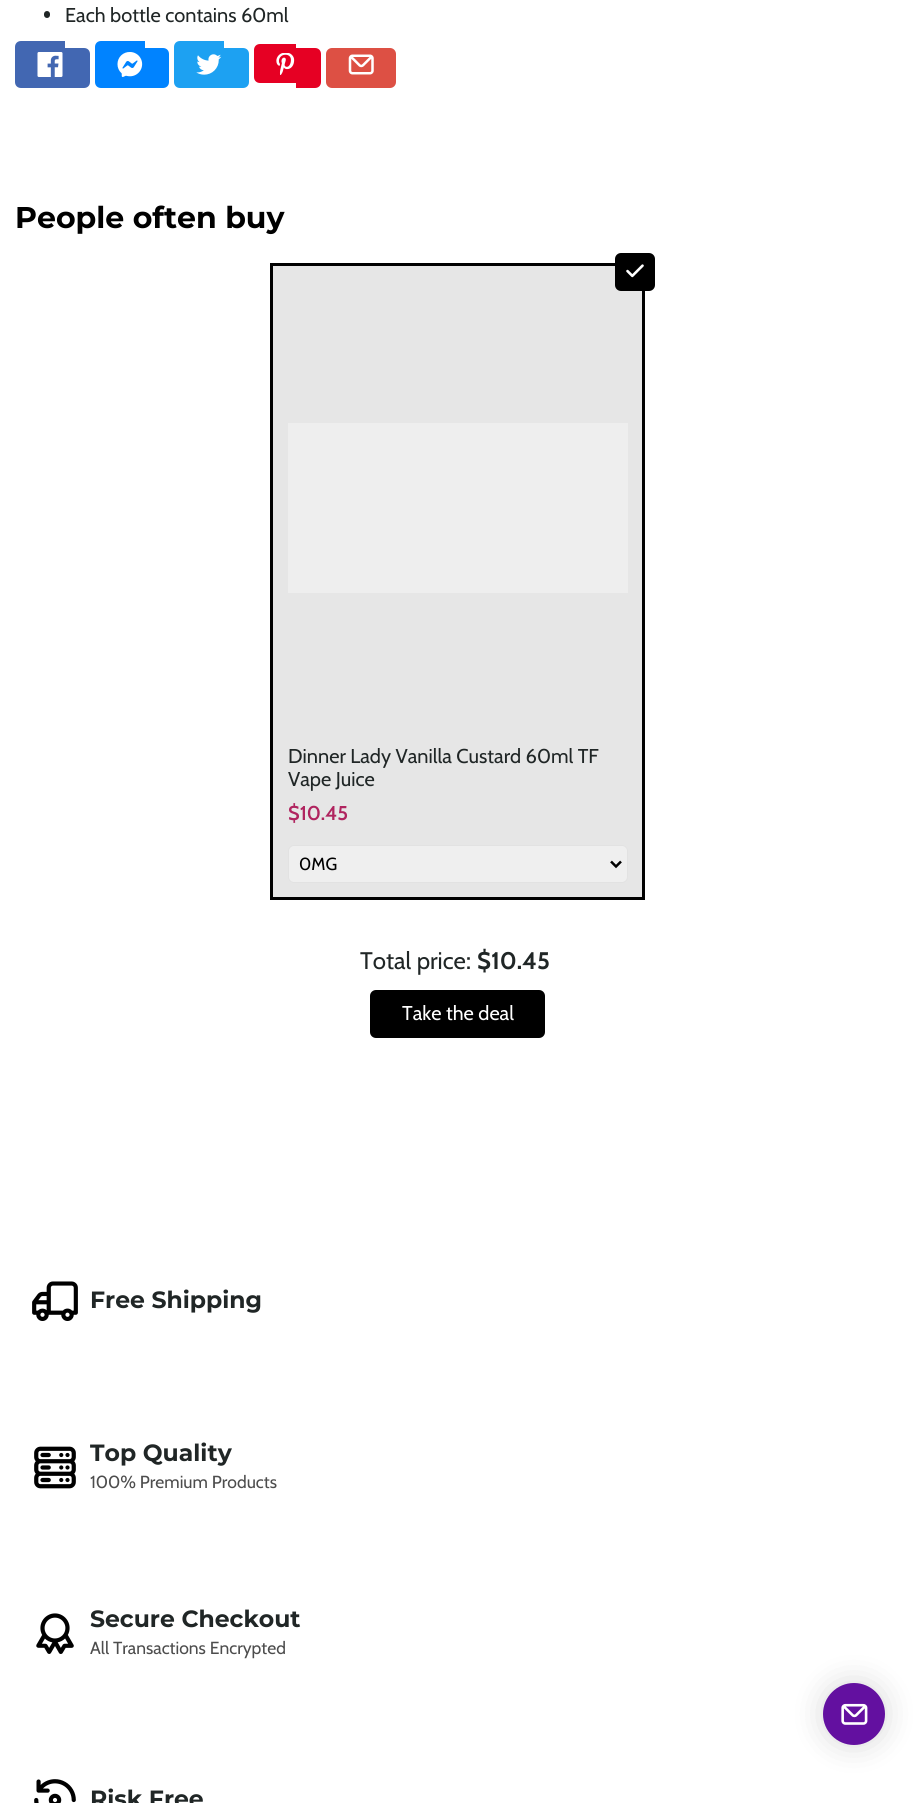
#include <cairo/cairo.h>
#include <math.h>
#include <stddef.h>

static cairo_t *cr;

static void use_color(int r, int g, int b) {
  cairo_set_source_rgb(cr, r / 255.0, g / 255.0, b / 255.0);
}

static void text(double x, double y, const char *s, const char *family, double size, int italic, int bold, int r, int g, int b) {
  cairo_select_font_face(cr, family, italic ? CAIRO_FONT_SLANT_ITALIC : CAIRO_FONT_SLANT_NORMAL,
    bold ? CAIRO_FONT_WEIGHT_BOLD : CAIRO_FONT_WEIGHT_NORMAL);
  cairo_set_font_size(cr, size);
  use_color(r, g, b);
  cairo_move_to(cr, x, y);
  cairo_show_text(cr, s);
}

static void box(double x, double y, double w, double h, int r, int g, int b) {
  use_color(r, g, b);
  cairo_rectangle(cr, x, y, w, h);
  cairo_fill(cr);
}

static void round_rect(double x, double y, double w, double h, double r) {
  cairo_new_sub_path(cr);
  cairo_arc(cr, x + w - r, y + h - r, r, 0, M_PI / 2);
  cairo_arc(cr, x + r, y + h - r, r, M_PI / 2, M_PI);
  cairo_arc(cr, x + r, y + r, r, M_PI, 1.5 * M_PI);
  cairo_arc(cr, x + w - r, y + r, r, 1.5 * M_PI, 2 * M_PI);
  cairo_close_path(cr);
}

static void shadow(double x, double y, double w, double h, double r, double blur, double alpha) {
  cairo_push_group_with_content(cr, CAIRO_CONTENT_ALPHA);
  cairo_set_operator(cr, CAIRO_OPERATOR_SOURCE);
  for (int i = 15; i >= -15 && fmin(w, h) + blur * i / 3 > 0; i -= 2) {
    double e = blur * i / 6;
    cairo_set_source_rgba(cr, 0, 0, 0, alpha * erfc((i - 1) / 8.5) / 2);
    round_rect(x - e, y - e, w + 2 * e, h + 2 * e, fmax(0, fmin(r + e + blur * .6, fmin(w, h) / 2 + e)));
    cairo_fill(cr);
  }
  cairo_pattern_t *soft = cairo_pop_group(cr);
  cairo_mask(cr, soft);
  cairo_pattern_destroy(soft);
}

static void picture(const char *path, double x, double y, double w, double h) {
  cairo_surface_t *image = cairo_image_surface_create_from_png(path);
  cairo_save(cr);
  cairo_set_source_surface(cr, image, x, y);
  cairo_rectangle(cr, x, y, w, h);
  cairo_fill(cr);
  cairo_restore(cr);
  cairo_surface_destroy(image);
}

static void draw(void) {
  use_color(255, 255, 255);
  cairo_paint(cr);
  use_color(32, 38, 38);
  round_rect(44, 11, 6, 7, 3);
  cairo_fill(cr);
  use_color(66, 103, 178);
  cairo_new_path(cr);
  cairo_move_to(cr, 21, 41);
  cairo_line_to(cr, 65, 41);
  cairo_line_to(cr, 65, 88);
  cairo_line_to(cr, 21, 88);
  cairo_curve_to(cr, 17.5, 88, 15, 85.5, 15, 82);
  cairo_line_to(cr, 15, 47);
  cairo_curve_to(cr, 15, 43.5, 17.5, 41, 21, 41);
  cairo_close_path(cr);
  cairo_fill(cr);
  cairo_new_path(cr);
  cairo_move_to(cr, 65, 48);
  cairo_line_to(cr, 84, 48);
  cairo_curve_to(cr, 87.5, 48, 90, 50.5, 90, 54);
  cairo_line_to(cr, 90, 82);
  cairo_curve_to(cr, 90, 85.5, 87.5, 88, 84, 88);
  cairo_line_to(cr, 65, 88);
  cairo_close_path(cr);
  cairo_fill(cr);
  picture("img_01.png", 37, 52, 26, 25);
  use_color(0, 131, 255);
  cairo_new_path(cr);
  cairo_move_to(cr, 101, 41);
  cairo_line_to(cr, 145, 41);
  cairo_line_to(cr, 145, 88);
  cairo_line_to(cr, 101, 88);
  cairo_curve_to(cr, 97.5, 88, 95, 85.5, 95, 82);
  cairo_line_to(cr, 95, 47);
  cairo_curve_to(cr, 95, 43.5, 97.5, 41, 101, 41);
  cairo_close_path(cr);
  cairo_fill(cr);
  cairo_new_path(cr);
  cairo_move_to(cr, 145, 48);
  cairo_line_to(cr, 163, 48);
  cairo_curve_to(cr, 166.5, 48, 169, 50.5, 169, 54);
  cairo_line_to(cr, 169, 82);
  cairo_curve_to(cr, 169, 85.5, 166.5, 88, 163, 88);
  cairo_line_to(cr, 145, 88);
  cairo_close_path(cr);
  cairo_fill(cr);
  picture("img_02.png", 117, 52, 26, 25);
  use_color(29, 161, 242);
  cairo_new_path(cr);
  cairo_move_to(cr, 180, 41);
  cairo_line_to(cr, 224, 41);
  cairo_line_to(cr, 224, 88);
  cairo_line_to(cr, 180, 88);
  cairo_curve_to(cr, 176.5, 88, 174, 85.5, 174, 82);
  cairo_line_to(cr, 174, 47);
  cairo_curve_to(cr, 174, 43.5, 176.5, 41, 180, 41);
  cairo_close_path(cr);
  cairo_fill(cr);
  cairo_new_path(cr);
  cairo_move_to(cr, 224, 48);
  cairo_line_to(cr, 243, 48);
  cairo_curve_to(cr, 246.5, 48, 249, 50.5, 249, 54);
  cairo_line_to(cr, 249, 82);
  cairo_curve_to(cr, 249, 85.5, 246.5, 88, 243, 88);
  cairo_line_to(cr, 224, 88);
  cairo_close_path(cr);
  cairo_fill(cr);
  picture("img_03.png", 196, 54, 26, 21);
  use_color(230, 0, 35);
  cairo_new_path(cr);
  cairo_move_to(cr, 260, 44);
  cairo_line_to(cr, 296, 44);
  cairo_line_to(cr, 296, 83);
  cairo_line_to(cr, 260, 83);
  cairo_curve_to(cr, 256.5, 83, 254, 80.5, 254, 77);
  cairo_line_to(cr, 254, 50);
  cairo_curve_to(cr, 254, 46.5, 256.5, 44, 260, 44);
  cairo_close_path(cr);
  cairo_fill(cr);
  cairo_new_path(cr);
  cairo_move_to(cr, 296, 48);
  cairo_line_to(cr, 315, 48);
  cairo_curve_to(cr, 318.5, 48, 321, 50.5, 321, 54);
  cairo_line_to(cr, 321, 82);
  cairo_curve_to(cr, 321, 85.5, 318.5, 88, 315, 88);
  cairo_line_to(cr, 296, 88);
  cairo_close_path(cr);
  cairo_fill(cr);
  use_color(221, 80, 68);
  round_rect(326, 48, 70, 40, 6);
  cairo_fill(cr);
  picture("img_04.png", 348, 54, 26, 21);
  picture("img_05.png", 276, 53, 19, 22);
  use_color(230, 230, 230);
  cairo_rectangle(cr, 271.5, 264.5, 372, 634);
  cairo_fill_preserve(cr);
  use_color(0, 0, 0);
  cairo_set_line_width(cr, 3);
  cairo_stroke(cr);
  round_rect(615, 253, 40, 38, 6);
  cairo_fill(cr);
  picture("img_06.png", 626, 264, 18, 14);
  box(288, 423, 340, 170, 238, 238, 238);
  use_color(239, 239, 239);
  round_rect(288.5, 845.5, 339, 37, 5.5);
  cairo_fill_preserve(cr);
  use_color(226, 226, 226);
  cairo_set_line_width(cr, 1);
  cairo_stroke(cr);
  cairo_new_path(cr);
  cairo_move_to(cr, 611, 861.5);
  cairo_line_to(cr, 616, 866.5);
  cairo_line_to(cr, 621, 861.5);
  use_color(0, 0, 0);
  cairo_set_line_width(cr, 2.5);
  cairo_stroke(cr);
  round_rect(370, 990, 175, 48, 6);
  cairo_fill(cr);
  picture("img_07.png", 32, 1281, 46, 40);
  picture("img_08.png", 34, 1446, 42, 43);
  picture("img_09.png", 36, 1613, 38, 41);
  picture("img_10.png", 34, 1779, 42, 24);
  use_color(0, 0, 0);
  shadow(823, 1683, 62, 62, 31, 15.5, 0.15);
  use_color(99, 16, 160);
  cairo_arc(cr, 854, 1714, 31, 0, 2 * M_PI);
  cairo_fill(cr);
  picture("img_11.png", 841, 1703, 27, 22);
  text(65, 22, "Each bottle contains 60ml", "Cabin", 20, 0, 0, 32, 38, 38);
  text(15, 228, "People often buy", "Montserrat", 30, 0, 1, 0, 0, 0);
  text(288, 763, "Dinner Lady Vanilla Custard 60ml TF", "Cabin", 20, 0, 0, 32, 38, 38);
  text(288, 786, "Vape Juice", "Cabin", 20, 0, 0, 32, 38, 38);
  text(288, 820, "$10.45", "Cabin SemiBold", 20, 0, 0, 176, 36, 95);
  text(299, 870, "0MG", "Cabin", 17.5, 0, 0, 0, 0, 0);
  text(360, 969, "Total price:", "Cabin", 24, 0, 0, 32, 38, 38);
  text(477, 969, "$10.45", "Cabin", 24, 0, 1, 32, 38, 38);
  text(402, 1020, "Take the deal", "Cabin", 20, 0, 0, 255, 255, 255);
  text(90, 1308, "Free Shipping", "Montserrat", 23.5, 0, 1, 32, 38, 38);
  text(90, 1461, "Top Quality", "Montserrat", 23.5, 0, 1, 32, 38, 38);
  text(90, 1488, "100% Premium Products", "Cabin", 17.5, 0, 0, 77, 77, 77);
  text(90, 1627, "Secure Checkout", "Montserrat", 23.5, 0, 1, 32, 38, 38);
  text(90, 1654, "All Transactions Encrypted", "Cabin", 17.5, 0, 0, 77, 77, 77);
  text(90, 1807, "Risk Free", "Montserrat", 23.5, 0, 1, 32, 38, 38);
}

int main(void) {
  cairo_surface_t *surface = cairo_image_surface_create(CAIRO_FORMAT_RGB24, 914, 1803);
  cr = cairo_create(surface);
  cairo_font_options_t *options = cairo_font_options_create();
  cairo_font_options_set_hint_metrics(options, CAIRO_HINT_METRICS_OFF);
  cairo_font_options_set_hint_style(options, CAIRO_HINT_STYLE_NONE);
  cairo_set_font_options(cr, options);
  cairo_set_miter_limit(cr, 4);
  draw();
  cairo_surface_write_to_png(surface, "out.png");
  cairo_font_options_destroy(options);
  cairo_destroy(cr);
  cairo_surface_destroy(surface);
  return 0;
}
